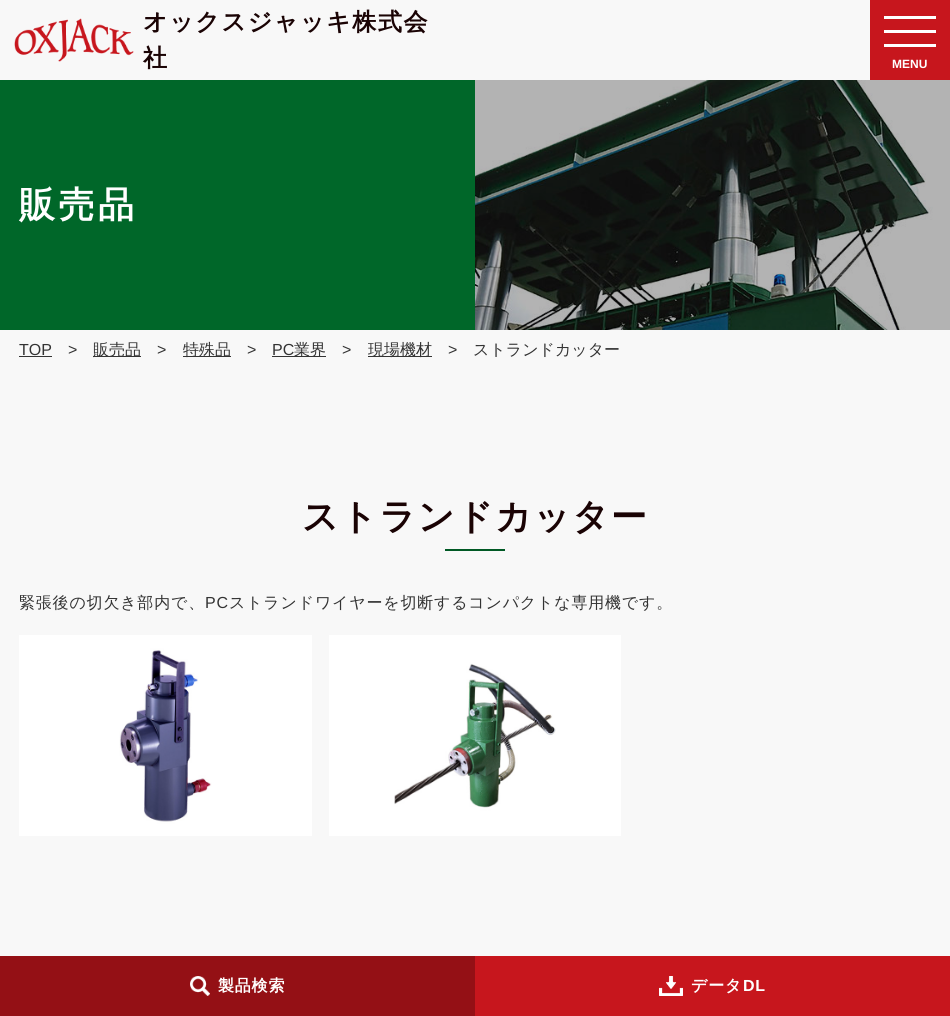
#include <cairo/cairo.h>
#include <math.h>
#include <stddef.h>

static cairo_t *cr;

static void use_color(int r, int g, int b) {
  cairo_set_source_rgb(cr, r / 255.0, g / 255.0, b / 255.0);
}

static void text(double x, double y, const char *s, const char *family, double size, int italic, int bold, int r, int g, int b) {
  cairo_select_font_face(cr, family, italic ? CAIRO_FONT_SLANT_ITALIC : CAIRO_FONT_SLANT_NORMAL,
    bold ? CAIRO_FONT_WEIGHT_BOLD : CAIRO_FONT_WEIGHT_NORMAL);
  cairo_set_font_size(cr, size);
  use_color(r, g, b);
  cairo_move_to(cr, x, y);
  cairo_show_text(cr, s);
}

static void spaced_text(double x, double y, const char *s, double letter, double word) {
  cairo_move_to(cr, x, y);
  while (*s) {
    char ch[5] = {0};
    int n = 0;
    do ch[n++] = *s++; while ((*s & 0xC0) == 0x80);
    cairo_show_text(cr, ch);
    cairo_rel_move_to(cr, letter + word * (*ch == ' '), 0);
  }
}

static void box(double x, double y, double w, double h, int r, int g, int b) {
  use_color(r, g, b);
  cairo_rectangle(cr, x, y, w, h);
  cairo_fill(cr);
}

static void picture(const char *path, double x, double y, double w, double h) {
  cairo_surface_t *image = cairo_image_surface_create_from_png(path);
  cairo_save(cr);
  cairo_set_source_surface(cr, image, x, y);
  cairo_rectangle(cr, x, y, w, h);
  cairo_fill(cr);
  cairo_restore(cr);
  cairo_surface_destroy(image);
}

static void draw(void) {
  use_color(248, 248, 248);
  cairo_paint(cr);
  picture("img_01.png", 14, 18, 120, 44);
  box(870, 0, 80, 80, 199, 22, 29);
  box(884, 30, 52, 3, 255, 255, 255);
  box(884, 16, 52, 3, 255, 255, 255);
  box(884, 44, 52, 3, 255, 255, 255);
  box(0, 80, 475, 250, 0, 103, 41);
  box(19, 356, 33, 1, 51, 51, 51);
  box(93, 356, 48, 1, 51, 51, 51);
  box(183, 356, 48, 1, 51, 51, 51);
  box(272, 356, 54, 1, 51, 51, 51);
  box(368, 356, 64, 1, 51, 51, 51);
  picture("img_02.png", 475, 80, 475, 250);
  box(445, 549, 60, 2, 0, 89, 36);
  picture("img_03.png", 19, 635, 293, 201);
  picture("img_04.png", 329, 635, 292, 201);
  box(0, 956, 475, 60, 148, 16, 21);
  picture("img_05.png", 190, 976, 20, 20);
  box(475, 956, 475, 60, 199, 22, 29);
  picture("img_06.png", 659, 976, 24, 20);
  cairo_select_font_face(cr, "WenQuanYi Zen Hei", CAIRO_FONT_SLANT_NORMAL, CAIRO_FONT_WEIGHT_BOLD);
  cairo_set_font_size(cr, 24);
  use_color(26, 3, 4);
  spaced_text(143, 30, "オックスジャッキ株式会", 1.6, 0);
  spaced_text(143, 66, "社", 1.6, 0);
  text(892, 68, "MENU", "Liberation Sans", 12, 0, 1, 255, 255, 255);
  cairo_select_font_face(cr, "WenQuanYi Zen Hei", CAIRO_FONT_SLANT_NORMAL, CAIRO_FONT_WEIGHT_BOLD);
  cairo_set_font_size(cr, 36);
  spaced_text(19, 217, "販売品", 3.5, 0);
  text(19, 355, "TOP", "Liberation Sans", 16, 0, 0, 51, 51, 51);
  text(68, 355, ">", "Liberation Sans", 16, 0, 0, 51, 51, 51);
  text(93, 355, "販売品", "WenQuanYi Zen Hei Medium", 16, 0, 0, 51, 51, 51);
  text(157, 355, ">", "Liberation Sans", 16, 0, 0, 51, 51, 51);
  text(183, 355, "特殊品", "WenQuanYi Zen Hei Medium", 16, 0, 0, 51, 51, 51);
  text(247, 355, ">", "Liberation Sans", 16, 0, 0, 51, 51, 51);
  text(272, 355, "PC", "Liberation Sans", 16, 0, 0, 51, 51, 51);
  text(294, 355, "業界", "WenQuanYi Zen Hei Medium", 16, 0, 0, 51, 51, 51);
  text(342, 355, ">", "Liberation Sans", 16, 0, 0, 51, 51, 51);
  text(368, 355, "現場機材", "WenQuanYi Zen Hei Medium", 16, 0, 0, 51, 51, 51);
  text(448, 355, ">", "Liberation Sans", 16, 0, 0, 51, 51, 51);
  text(473, 355, "ストランドカッター", "WenQuanYi Zen Hei Medium", 16, 0, 0, 51, 51, 51);
  cairo_select_font_face(cr, "WenQuanYi Zen Hei", CAIRO_FONT_SLANT_NORMAL, CAIRO_FONT_WEIGHT_BOLD);
  cairo_set_font_size(cr, 36);
  use_color(26, 3, 4);
  spaced_text(302, 529, "ストランドカッター", 1.75, 0);
  cairo_select_font_face(cr, "WenQuanYi Zen Hei Medium", CAIRO_FONT_SLANT_NORMAL, CAIRO_FONT_WEIGHT_NORMAL);
  cairo_set_font_size(cr, 16);
  use_color(51, 51, 51);
  spaced_text(19, 608, "緊張後の切欠き部内で、", 0.8, 0);
  cairo_select_font_face(cr, "Liberation Sans", CAIRO_FONT_SLANT_NORMAL, CAIRO_FONT_WEIGHT_NORMAL);
  spaced_text(205, 608, "PC", 0.8, 0);
  cairo_select_font_face(cr, "WenQuanYi Zen Hei Medium", CAIRO_FONT_SLANT_NORMAL, CAIRO_FONT_WEIGHT_NORMAL);
  spaced_text(229, 608, "ストランドワイヤーを切断するコンパクトな専用機です。", 0.8, 0);
  cairo_select_font_face(cr, "WenQuanYi Zen Hei", CAIRO_FONT_SLANT_NORMAL, CAIRO_FONT_WEIGHT_BOLD);
  use_color(255, 255, 255);
  spaced_text(218, 991, "製品検索", 0.8, 0);
  spaced_text(691, 991, "データ", 0.8, 0);
  cairo_select_font_face(cr, "Liberation Sans", CAIRO_FONT_SLANT_NORMAL, CAIRO_FONT_WEIGHT_BOLD);
  spaced_text(743, 991, "DL", 0.8, 0);
}

int main(void) {
  cairo_surface_t *surface = cairo_image_surface_create(CAIRO_FORMAT_RGB24, 950, 1016);
  cr = cairo_create(surface);
  cairo_font_options_t *options = cairo_font_options_create();
  cairo_font_options_set_hint_metrics(options, CAIRO_HINT_METRICS_OFF);
  cairo_font_options_set_hint_style(options, CAIRO_HINT_STYLE_NONE);
  cairo_set_font_options(cr, options);
  cairo_set_miter_limit(cr, 4);
  draw();
  cairo_surface_write_to_png(surface, "out.png");
  cairo_font_options_destroy(options);
  cairo_destroy(cr);
  cairo_surface_destroy(surface);
  return 0;
}
